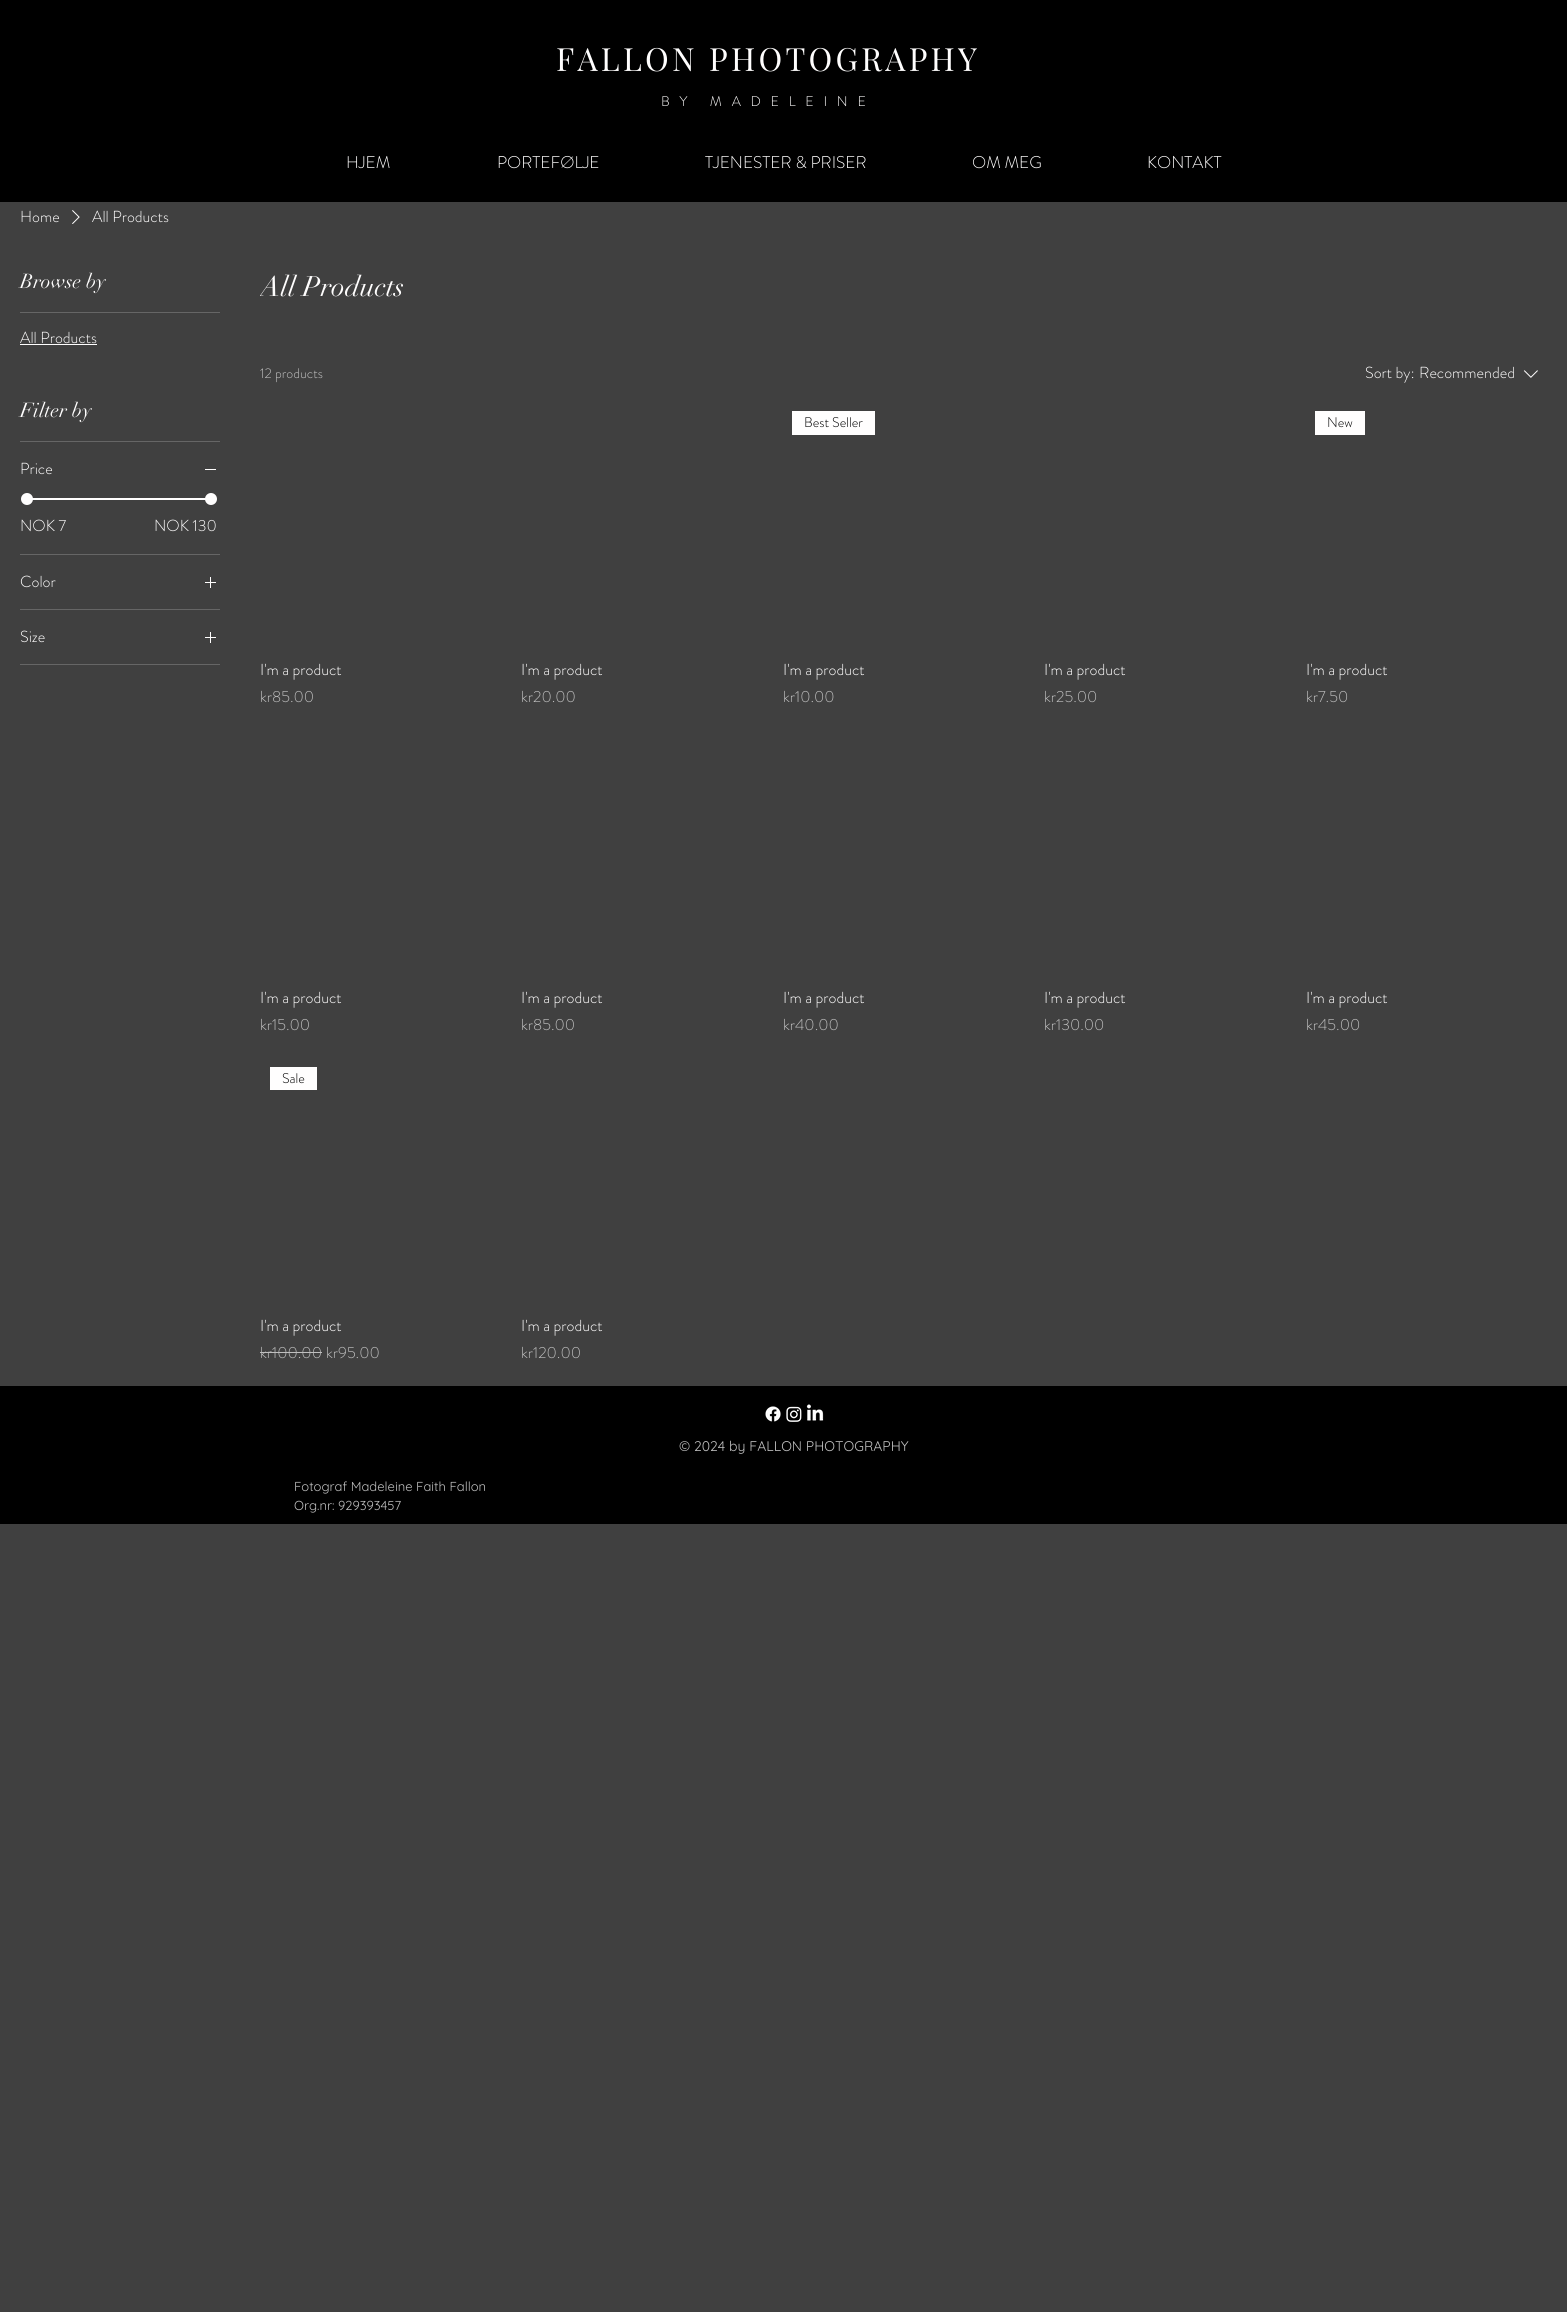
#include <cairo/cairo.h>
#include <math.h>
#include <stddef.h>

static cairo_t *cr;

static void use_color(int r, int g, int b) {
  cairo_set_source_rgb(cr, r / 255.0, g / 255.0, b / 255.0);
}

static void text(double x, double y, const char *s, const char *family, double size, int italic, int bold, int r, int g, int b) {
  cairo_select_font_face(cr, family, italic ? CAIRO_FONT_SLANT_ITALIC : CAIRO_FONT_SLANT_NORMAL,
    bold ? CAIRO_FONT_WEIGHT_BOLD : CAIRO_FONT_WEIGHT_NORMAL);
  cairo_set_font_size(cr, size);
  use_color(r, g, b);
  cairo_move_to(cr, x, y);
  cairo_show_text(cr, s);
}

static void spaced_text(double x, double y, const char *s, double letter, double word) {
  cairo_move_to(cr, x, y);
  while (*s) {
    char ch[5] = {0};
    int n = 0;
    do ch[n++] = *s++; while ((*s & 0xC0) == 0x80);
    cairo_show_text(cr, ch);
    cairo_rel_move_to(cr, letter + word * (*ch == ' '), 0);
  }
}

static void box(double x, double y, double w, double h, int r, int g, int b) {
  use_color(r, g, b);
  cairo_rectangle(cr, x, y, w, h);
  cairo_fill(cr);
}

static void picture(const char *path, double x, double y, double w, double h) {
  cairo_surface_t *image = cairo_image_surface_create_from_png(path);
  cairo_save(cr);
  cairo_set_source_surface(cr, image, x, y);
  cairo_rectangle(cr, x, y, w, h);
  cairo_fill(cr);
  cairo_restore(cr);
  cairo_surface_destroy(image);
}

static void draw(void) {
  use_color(64, 64, 64);
  cairo_paint(cr);
  box(0, 0, 1567, 202, 0, 0, 0);
  picture("img_01.png", 72, 210, 8, 14);
  box(20, 312, 200, 1, 102, 102, 102);
  box(20, 344, 77, 1, 255, 254, 254);
  box(20, 441, 200, 1, 102, 102, 102);
  box(20, 554, 200, 1, 102, 102, 102);
  box(205, 469, 11, 1, 255, 254, 254);
  box(26, 498, 184, 2, 255, 254, 254);
  cairo_arc(cr, 27, 499, 6, 0, 2 * M_PI);
  cairo_fill(cr);
  cairo_arc(cr, 211, 499, 6, 0, 2 * M_PI);
  cairo_fill(cr);
  box(20, 609, 200, 1, 102, 102, 102);
  picture("img_02.png", 205, 577, 11, 11);
  box(20, 664, 200, 1, 102, 102, 102);
  picture("img_02.png", 205, 632, 11, 11);
  picture("img_03.png", 1523, 370, 15, 8);
  box(792, 411, 83, 24, 255, 254, 254);
  box(1315, 411, 50, 24, 255, 254, 254);
  box(270, 1067, 47, 23, 255, 254, 254);
  box(260, 1352, 62, 1, 191, 191, 191);
  box(0, 1386, 1567, 138, 0, 0, 0);
  picture("img_04.png", 765, 1406, 16, 16);
  picture("img_05.png", 786, 1406, 16, 16);
  picture("img_06.png", 806, 1404, 18, 17);
  cairo_select_font_face(cr, "Playfair Display", CAIRO_FONT_SLANT_NORMAL, CAIRO_FONT_WEIGHT_NORMAL);
  cairo_set_font_size(cr, 32);
  use_color(255, 254, 254);
  spaced_text(556, 71, "FALLON PHOTOGRAPHY", 3.25, 0);
  cairo_select_font_face(cr, "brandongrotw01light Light", CAIRO_FONT_SLANT_NORMAL, CAIRO_FONT_WEIGHT_NORMAL);
  cairo_set_font_size(cr, 14);
  spaced_text(661, 106, "BY MADELEINE", 9.75, 0);
  text(346, 168, "HJEM", "brandongrotw01light Light", 17, 0, 0, 255, 254, 254);
  text(497, 168, "PORTEFØLJE", "brandongrotw01light Light", 17, 0, 0, 255, 254, 254);
  text(705, 168, "TJENESTER & PRISER", "brandongrotw01light Light", 17, 0, 0, 255, 254, 254);
  text(972, 168, "OM MEG", "brandongrotw01light Light", 17, 0, 0, 255, 254, 254);
  text(1147, 168, "KONTAKT", "brandongrotw01light Light", 17, 0, 0, 255, 254, 254);
  text(20, 222, "Home", "brandongrotw01light Light", 16, 0, 0, 255, 254, 254);
  text(92, 222, "All Products", "brandongrotw01light Light", 16, 0, 0, 255, 254, 254);
  text(20, 288, "Browse by", "didot", 20, 0, 0, 255, 254, 254);
  text(20, 343, "All Products", "brandongrotw01light Light", 16, 0, 0, 255, 254, 254);
  text(20, 417, "Filter by", "didot", 20, 0, 0, 255, 254, 254);
  text(20, 474, "Price", "brandongrotw01light Light", 16, 0, 0, 255, 254, 254);
  text(20, 531, "NOK 7", "brandongrotw01light Light", 16, 0, 0, 255, 254, 254);
  text(154, 531, "NOK 130", "brandongrotw01light Light", 16, 0, 0, 255, 254, 254);
  text(20, 587, "Color", "brandongrotw01light Light", 16, 0, 0, 255, 254, 254);
  text(20, 642, "Size", "brandongrotw01light Light", 16, 0, 0, 255, 254, 254);
  cairo_save(cr);
  cairo_rectangle(cr, 260, 268, 180, 40);
  cairo_clip(cr);
  text(260, 296, "All Products", "didot", 28, 0, 0, 255, 254, 254);
  cairo_restore(cr);
  text(260, 378, "12 products", "brandongrotw01light Light", 14, 0, 0, 191, 191, 191);
  text(1365, 378, "Sort by:", "brandongrotw01light Light", 16, 0, 0, 255, 254, 254);
  text(1419, 378, "Recommended", "brandongrotw01light Light", 16, 0, 0, 255, 254, 254);
  text(260, 675, "I'm a product", "brandongrotw01light Light", 16, 0, 0, 255, 254, 254);
  text(260, 702, "kr85.00", "brandongrotw01light Light", 16, 0, 0, 191, 191, 191);
  text(521, 675, "I'm a product", "brandongrotw01light Light", 16, 0, 0, 255, 254, 254);
  text(521, 702, "kr20.00", "brandongrotw01light Light", 16, 0, 0, 191, 191, 191);
  text(804, 427, "Best Seller", "brandongrotw01light Light", 14, 0, 0, 0, 0, 0);
  text(783, 675, "I'm a product", "brandongrotw01light Light", 16, 0, 0, 255, 254, 254);
  text(783, 702, "kr10.00", "brandongrotw01light Light", 16, 0, 0, 191, 191, 191);
  text(1044, 675, "I'm a product", "brandongrotw01light Light", 16, 0, 0, 255, 254, 254);
  text(1044, 702, "kr25.00", "brandongrotw01light Light", 16, 0, 0, 191, 191, 191);
  text(1327, 427, "New", "brandongrotw01light Light", 14, 0, 0, 0, 0, 0);
  text(1306, 675, "I'm a product", "brandongrotw01light Light", 16, 0, 0, 255, 254, 254);
  text(1306, 702, "kr7.50", "brandongrotw01light Light", 16, 0, 0, 191, 191, 191);
  text(260, 1003, "I'm a product", "brandongrotw01light Light", 16, 0, 0, 255, 254, 254);
  text(260, 1030, "kr15.00", "brandongrotw01light Light", 16, 0, 0, 191, 191, 191);
  text(521, 1003, "I'm a product", "brandongrotw01light Light", 16, 0, 0, 255, 254, 254);
  text(521, 1030, "kr85.00", "brandongrotw01light Light", 16, 0, 0, 191, 191, 191);
  text(783, 1003, "I'm a product", "brandongrotw01light Light", 16, 0, 0, 255, 254, 254);
  text(783, 1030, "kr40.00", "brandongrotw01light Light", 16, 0, 0, 191, 191, 191);
  text(1044, 1003, "I'm a product", "brandongrotw01light Light", 16, 0, 0, 255, 254, 254);
  text(1044, 1030, "kr130.00", "brandongrotw01light Light", 16, 0, 0, 191, 191, 191);
  text(1306, 1003, "I'm a product", "brandongrotw01light Light", 16, 0, 0, 255, 254, 254);
  text(1306, 1030, "kr45.00", "brandongrotw01light Light", 16, 0, 0, 191, 191, 191);
  text(282, 1083, "Sale", "brandongrotw01light Light", 14, 0, 0, 0, 0, 0);
  text(260, 1331, "I'm a product", "brandongrotw01light Light", 16, 0, 0, 255, 254, 254);
  text(260, 1358, "kr100.00", "brandongrotw01light Light", 16, 0, 0, 191, 191, 191);
  text(326, 1358, "kr95.00", "brandongrotw01light Light", 16, 0, 0, 191, 191, 191);
  text(521, 1331, "I'm a product", "brandongrotw01light Light", 16, 0, 0, 255, 254, 254);
  text(521, 1358, "kr120.00", "brandongrotw01light Light", 16, 0, 0, 191, 191, 191);
  text(679, 1451, "© 2024 by FALLON PHOTOGRAPHY", "Quicksand", 14, 0, 0, 191, 191, 191);
  text(294, 1491, "Fotograf Madeleine Faith Fallon", "Quicksand", 13, 0, 0, 191, 191, 191);
  text(294, 1510, "Org.nr: 929393457", "Quicksand", 13, 0, 0, 191, 191, 191);
}

int main(void) {
  cairo_surface_t *surface = cairo_image_surface_create(CAIRO_FORMAT_RGB24, 1567, 2312);
  cr = cairo_create(surface);
  cairo_font_options_t *options = cairo_font_options_create();
  cairo_font_options_set_hint_metrics(options, CAIRO_HINT_METRICS_OFF);
  cairo_font_options_set_hint_style(options, CAIRO_HINT_STYLE_NONE);
  cairo_set_font_options(cr, options);
  cairo_set_miter_limit(cr, 4);
  draw();
  cairo_surface_write_to_png(surface, "out.png");
  cairo_font_options_destroy(options);
  cairo_destroy(cr);
  cairo_surface_destroy(surface);
  return 0;
}
